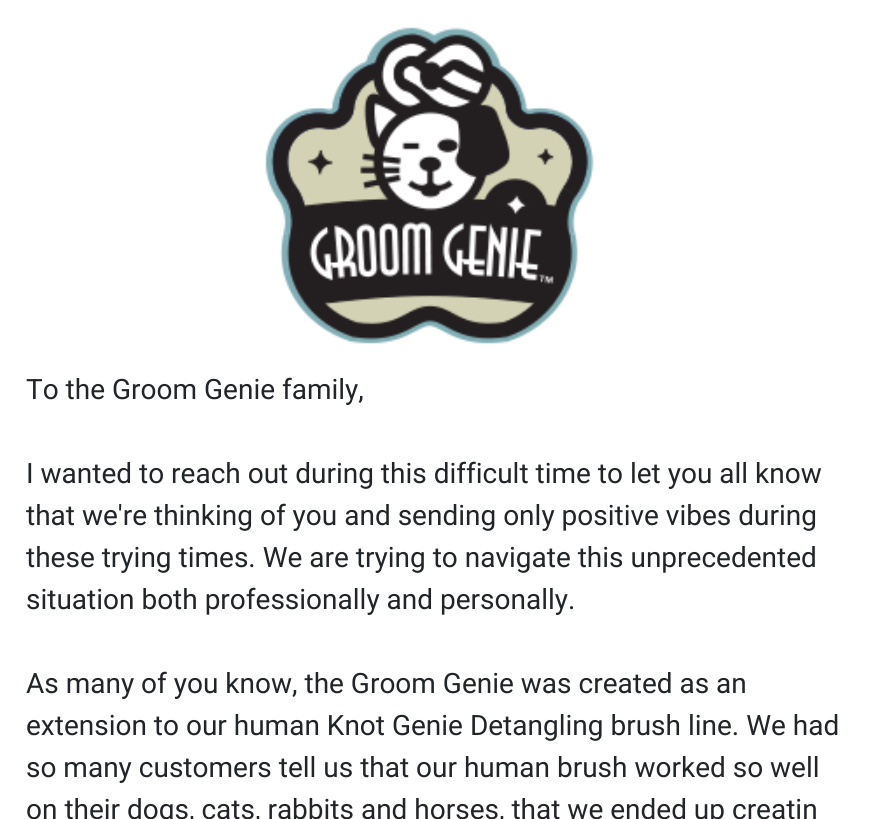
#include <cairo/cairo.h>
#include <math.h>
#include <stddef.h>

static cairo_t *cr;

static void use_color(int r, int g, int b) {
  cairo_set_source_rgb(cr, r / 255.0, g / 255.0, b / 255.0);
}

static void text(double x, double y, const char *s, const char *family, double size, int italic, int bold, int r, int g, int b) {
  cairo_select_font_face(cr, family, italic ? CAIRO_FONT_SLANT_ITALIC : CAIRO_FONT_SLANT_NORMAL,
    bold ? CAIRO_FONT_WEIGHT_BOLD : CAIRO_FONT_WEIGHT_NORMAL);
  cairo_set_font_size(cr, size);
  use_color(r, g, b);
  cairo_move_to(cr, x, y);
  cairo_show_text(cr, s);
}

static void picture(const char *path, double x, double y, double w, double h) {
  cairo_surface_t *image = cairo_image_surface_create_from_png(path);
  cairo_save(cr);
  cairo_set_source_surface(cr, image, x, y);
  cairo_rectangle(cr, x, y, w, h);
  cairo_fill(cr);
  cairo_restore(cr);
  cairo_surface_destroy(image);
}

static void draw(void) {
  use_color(255, 255, 255);
  cairo_paint(cr);
  picture("img_01.png", 265, 27, 329, 317);
  text(26, 399, "To the Groom Genie family,", "Roboto", 28, 0, 0, 33, 37, 41);
  text(26, 483, "I wanted to reach out during this difficult time to let you all know", "Roboto", 28, 0, 0, 33, 37, 41);
  text(26, 525, "that we're thinking of you and sending only positive vibes during", "Roboto", 28, 0, 0, 33, 37, 41);
  text(26, 567, "these trying times. We are trying to navigate this unprecedented", "Roboto", 28, 0, 0, 33, 37, 41);
  text(26, 609, "situation both professionally and personally.", "Roboto", 28, 0, 0, 33, 37, 41);
  text(26, 693, "As many of you know, the Groom Genie was created as an", "Roboto", 28, 0, 0, 33, 37, 41);
  text(26, 735, "extension to our human Knot Genie Detangling brush line. We had", "Roboto", 28, 0, 0, 33, 37, 41);
  text(26, 777, "so many customers tell us that our human brush worked so well", "Roboto", 28, 0, 0, 33, 37, 41);
  text(26, 819, "on their dogs, cats, rabbits and horses, that we ended up creatin", "Roboto", 28, 0, 0, 33, 37, 41);
}

int main(void) {
  cairo_surface_t *surface = cairo_image_surface_create(CAIRO_FORMAT_RGB24, 872, 819);
  cr = cairo_create(surface);
  cairo_font_options_t *options = cairo_font_options_create();
  cairo_font_options_set_hint_metrics(options, CAIRO_HINT_METRICS_OFF);
  cairo_font_options_set_hint_style(options, CAIRO_HINT_STYLE_NONE);
  cairo_set_font_options(cr, options);
  cairo_set_miter_limit(cr, 4);
  draw();
  cairo_surface_write_to_png(surface, "out.png");
  cairo_font_options_destroy(options);
  cairo_destroy(cr);
  cairo_surface_destroy(surface);
  return 0;
}
